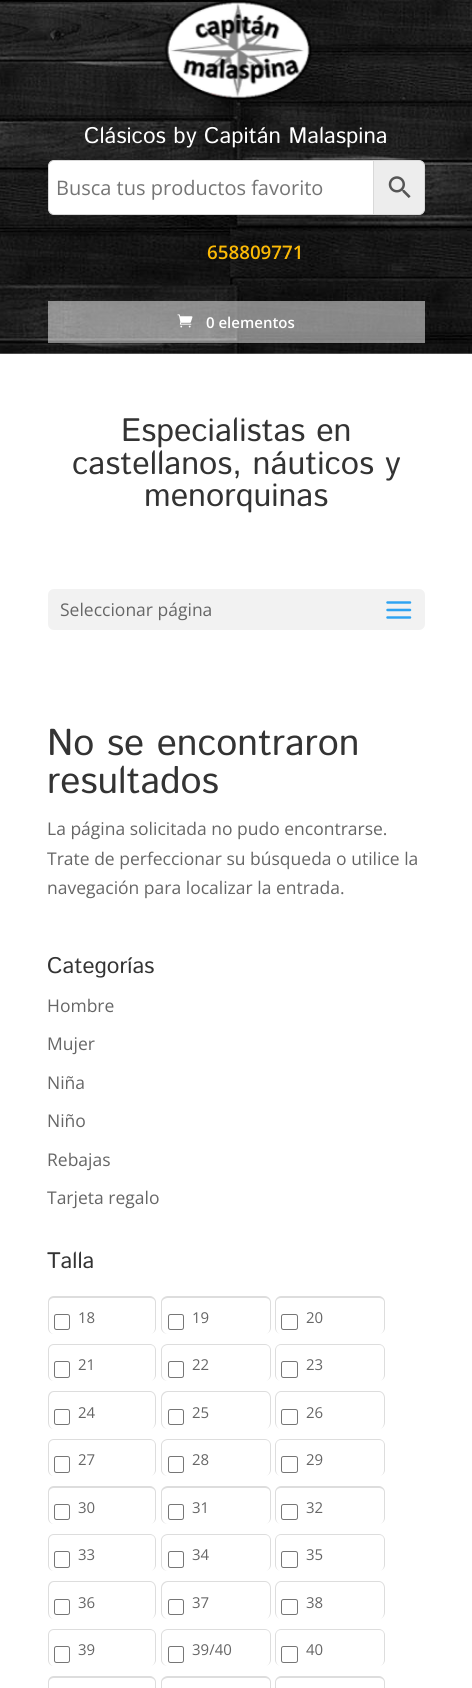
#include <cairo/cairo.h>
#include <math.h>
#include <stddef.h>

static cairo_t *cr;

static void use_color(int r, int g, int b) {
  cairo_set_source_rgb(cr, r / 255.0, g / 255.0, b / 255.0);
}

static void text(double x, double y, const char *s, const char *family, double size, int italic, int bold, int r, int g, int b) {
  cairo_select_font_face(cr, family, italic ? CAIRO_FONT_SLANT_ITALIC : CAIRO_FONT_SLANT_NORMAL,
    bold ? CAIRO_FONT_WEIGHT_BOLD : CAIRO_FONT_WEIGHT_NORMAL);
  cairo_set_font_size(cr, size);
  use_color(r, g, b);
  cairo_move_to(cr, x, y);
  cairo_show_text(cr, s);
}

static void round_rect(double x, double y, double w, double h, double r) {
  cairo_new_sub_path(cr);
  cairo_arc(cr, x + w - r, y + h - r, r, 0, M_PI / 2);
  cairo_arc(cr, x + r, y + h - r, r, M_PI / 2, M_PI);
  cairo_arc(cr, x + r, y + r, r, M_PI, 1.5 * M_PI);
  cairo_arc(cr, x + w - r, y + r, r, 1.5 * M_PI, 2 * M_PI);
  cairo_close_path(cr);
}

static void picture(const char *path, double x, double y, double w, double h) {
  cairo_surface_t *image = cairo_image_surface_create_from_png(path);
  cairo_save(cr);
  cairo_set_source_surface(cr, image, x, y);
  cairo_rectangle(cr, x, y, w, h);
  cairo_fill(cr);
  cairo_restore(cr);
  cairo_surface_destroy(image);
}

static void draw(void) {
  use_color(255, 255, 255);
  cairo_paint(cr);
  picture("img_01.png", 0, 0, 472, 354);
  picture("img_02.png", 164, 0, 148, 100);
  use_color(237, 237, 237);
  cairo_new_path(cr);
  cairo_move_to(cr, 373.5, 160.5);
  cairo_line_to(cr, 419, 160.5);
  cairo_curve_to(cr, 422, 160.5, 424.5, 163, 424.5, 166);
  cairo_line_to(cr, 424.5, 209);
  cairo_curve_to(cr, 424.5, 212, 422, 214.5, 419, 214.5);
  cairo_line_to(cr, 373.5, 214.5);
  cairo_close_path(cr);
  cairo_fill_preserve(cr);
  use_color(216, 216, 216);
  cairo_set_line_width(cr, 1);
  cairo_stroke(cr);
  use_color(255, 255, 255);
  cairo_new_path(cr);
  cairo_move_to(cr, 54, 160.5);
  cairo_line_to(cr, 373.5, 160.5);
  cairo_line_to(cr, 373.5, 214.5);
  cairo_line_to(cr, 54, 214.5);
  cairo_curve_to(cr, 51, 214.5, 48.5, 212, 48.5, 209);
  cairo_line_to(cr, 48.5, 166);
  cairo_curve_to(cr, 48.5, 163, 51, 160.5, 54, 160.5);
  cairo_close_path(cr);
  cairo_fill_preserve(cr);
  use_color(216, 216, 216);
  cairo_stroke(cr);
  picture("img_03.png", 388, 176, 23, 22);
  cairo_set_source_rgba(cr, 1, 1, 1, 0.5);
  cairo_rectangle(cr, 48, 301, 377, 42);
  cairo_fill(cr);
  picture("img_04.png", 177, 314, 16, 14);
  use_color(242, 242, 242);
  round_rect(48, 589, 377, 41, 6);
  cairo_fill(cr);
  picture("img_05.png", 386, 601, 26, 18);
  use_color(221, 221, 221);
  cairo_set_fill_rule(cr, CAIRO_FILL_RULE_EVEN_ODD);
  cairo_new_path(cr);
  cairo_move_to(cr, 54, 1296);
  cairo_line_to(cr, 150, 1296);
  cairo_curve_to(cr, 153, 1296, 156, 1299, 156, 1302);
  cairo_line_to(cr, 156, 1328);
  cairo_curve_to(cr, 156, 1331, 153, 1334, 150, 1334);
  cairo_line_to(cr, 54, 1334);
  cairo_curve_to(cr, 50, 1334, 48, 1331, 48, 1328);
  cairo_line_to(cr, 48, 1302);
  cairo_curve_to(cr, 48, 1299, 50, 1296, 54, 1296);
  cairo_close_path(cr);
  cairo_move_to(cr, 54, 1298);
  cairo_line_to(cr, 150, 1298);
  cairo_curve_to(cr, 153, 1298, 155, 1300, 155, 1302);
  cairo_line_to(cr, 155, 1328);
  cairo_curve_to(cr, 155, 1331, 153, 1334, 150, 1334);
  cairo_line_to(cr, 54, 1334);
  cairo_curve_to(cr, 51, 1334, 49, 1331, 49, 1328);
  cairo_line_to(cr, 49, 1302);
  cairo_curve_to(cr, 49, 1300, 51, 1298, 54, 1298);
  cairo_close_path(cr);
  cairo_fill(cr);
  round_rect(54.5, 1314.5, 15, 15, 2);
  use_color(118, 118, 118);
  cairo_stroke(cr);
  use_color(221, 221, 221);
  cairo_new_path(cr);
  cairo_move_to(cr, 168, 1296);
  cairo_line_to(cr, 265, 1296);
  cairo_curve_to(cr, 268, 1296, 271, 1299, 271, 1302);
  cairo_line_to(cr, 271, 1328);
  cairo_curve_to(cr, 271, 1331, 268, 1334, 265, 1334);
  cairo_line_to(cr, 168, 1334);
  cairo_curve_to(cr, 164, 1334, 161, 1331, 161, 1328);
  cairo_line_to(cr, 161, 1302);
  cairo_curve_to(cr, 161, 1299, 164, 1296, 168, 1296);
  cairo_close_path(cr);
  cairo_move_to(cr, 168, 1298);
  cairo_line_to(cr, 265, 1298);
  cairo_curve_to(cr, 268, 1298, 270, 1300, 270, 1302);
  cairo_line_to(cr, 270, 1328);
  cairo_curve_to(cr, 270, 1331, 268, 1334, 265, 1334);
  cairo_line_to(cr, 168, 1334);
  cairo_curve_to(cr, 165, 1334, 162, 1331, 162, 1328);
  cairo_line_to(cr, 162, 1302);
  cairo_curve_to(cr, 162, 1300, 165, 1298, 168, 1298);
  cairo_close_path(cr);
  cairo_fill(cr);
  round_rect(168.5, 1314.5, 15, 15, 2);
  use_color(118, 118, 118);
  cairo_stroke(cr);
  use_color(221, 221, 221);
  cairo_new_path(cr);
  cairo_move_to(cr, 281, 1296);
  cairo_line_to(cr, 379, 1296);
  cairo_curve_to(cr, 382, 1296, 385, 1299, 385, 1302);
  cairo_line_to(cr, 385, 1328);
  cairo_curve_to(cr, 385, 1331, 382, 1334, 379, 1334);
  cairo_line_to(cr, 281, 1334);
  cairo_curve_to(cr, 278, 1334, 275, 1331, 275, 1328);
  cairo_line_to(cr, 275, 1302);
  cairo_curve_to(cr, 275, 1299, 278, 1296, 281, 1296);
  cairo_close_path(cr);
  cairo_move_to(cr, 281, 1298);
  cairo_line_to(cr, 379, 1298);
  cairo_curve_to(cr, 382, 1298, 384, 1300, 384, 1302);
  cairo_line_to(cr, 384, 1328);
  cairo_curve_to(cr, 384, 1331, 382, 1334, 379, 1334);
  cairo_line_to(cr, 281, 1334);
  cairo_curve_to(cr, 278, 1334, 276, 1331, 276, 1328);
  cairo_line_to(cr, 276, 1302);
  cairo_curve_to(cr, 276, 1300, 278, 1298, 281, 1298);
  cairo_close_path(cr);
  cairo_fill(cr);
  round_rect(281.5, 1314.5, 16, 15, 2);
  use_color(118, 118, 118);
  cairo_stroke(cr);
  use_color(221, 221, 221);
  cairo_new_path(cr);
  cairo_move_to(cr, 54, 1344);
  cairo_line_to(cr, 150, 1344);
  cairo_curve_to(cr, 153, 1344, 156, 1347, 156, 1350);
  cairo_line_to(cr, 156, 1375);
  cairo_curve_to(cr, 156, 1378, 153, 1381, 150, 1381);
  cairo_line_to(cr, 54, 1381);
  cairo_curve_to(cr, 50, 1381, 48, 1378, 48, 1375);
  cairo_line_to(cr, 48, 1350);
  cairo_curve_to(cr, 48, 1347, 50, 1344, 54, 1344);
  cairo_close_path(cr);
  cairo_move_to(cr, 54, 1345);
  cairo_line_to(cr, 150, 1345);
  cairo_curve_to(cr, 153, 1345, 155, 1347, 155, 1350);
  cairo_line_to(cr, 155, 1375);
  cairo_curve_to(cr, 155, 1378, 153, 1381, 150, 1381);
  cairo_line_to(cr, 54, 1381);
  cairo_curve_to(cr, 51, 1381, 49, 1378, 49, 1375);
  cairo_line_to(cr, 49, 1350);
  cairo_curve_to(cr, 49, 1347, 51, 1345, 54, 1345);
  cairo_close_path(cr);
  cairo_fill(cr);
  round_rect(54.5, 1361.5, 15, 16, 2);
  use_color(118, 118, 118);
  cairo_stroke(cr);
  use_color(221, 221, 221);
  cairo_new_path(cr);
  cairo_move_to(cr, 168, 1344);
  cairo_line_to(cr, 265, 1344);
  cairo_curve_to(cr, 268, 1344, 271, 1347, 271, 1350);
  cairo_line_to(cr, 271, 1375);
  cairo_curve_to(cr, 271, 1378, 268, 1381, 265, 1381);
  cairo_line_to(cr, 168, 1381);
  cairo_curve_to(cr, 164, 1381, 161, 1378, 161, 1375);
  cairo_line_to(cr, 161, 1350);
  cairo_curve_to(cr, 161, 1347, 164, 1344, 168, 1344);
  cairo_close_path(cr);
  cairo_move_to(cr, 168, 1345);
  cairo_line_to(cr, 265, 1345);
  cairo_curve_to(cr, 268, 1345, 270, 1347, 270, 1350);
  cairo_line_to(cr, 270, 1375);
  cairo_curve_to(cr, 270, 1378, 268, 1381, 265, 1381);
  cairo_line_to(cr, 168, 1381);
  cairo_curve_to(cr, 165, 1381, 162, 1378, 162, 1375);
  cairo_line_to(cr, 162, 1350);
  cairo_curve_to(cr, 162, 1347, 165, 1345, 168, 1345);
  cairo_close_path(cr);
  cairo_fill(cr);
  round_rect(168.5, 1361.5, 15, 16, 2);
  use_color(118, 118, 118);
  cairo_stroke(cr);
  use_color(221, 221, 221);
  cairo_new_path(cr);
  cairo_move_to(cr, 281, 1344);
  cairo_line_to(cr, 379, 1344);
  cairo_curve_to(cr, 382, 1344, 385, 1347, 385, 1350);
  cairo_line_to(cr, 385, 1375);
  cairo_curve_to(cr, 385, 1378, 382, 1381, 379, 1381);
  cairo_line_to(cr, 281, 1381);
  cairo_curve_to(cr, 278, 1381, 275, 1378, 275, 1375);
  cairo_line_to(cr, 275, 1350);
  cairo_curve_to(cr, 275, 1347, 278, 1344, 281, 1344);
  cairo_close_path(cr);
  cairo_move_to(cr, 281, 1345);
  cairo_line_to(cr, 379, 1345);
  cairo_curve_to(cr, 382, 1345, 384, 1347, 384, 1350);
  cairo_line_to(cr, 384, 1375);
  cairo_curve_to(cr, 384, 1378, 382, 1381, 379, 1381);
  cairo_line_to(cr, 281, 1381);
  cairo_curve_to(cr, 278, 1381, 276, 1378, 276, 1375);
  cairo_line_to(cr, 276, 1350);
  cairo_curve_to(cr, 276, 1347, 278, 1345, 281, 1345);
  cairo_close_path(cr);
  cairo_fill(cr);
  round_rect(281.5, 1361.5, 16, 16, 2);
  use_color(118, 118, 118);
  cairo_stroke(cr);
  use_color(221, 221, 221);
  cairo_new_path(cr);
  cairo_move_to(cr, 54, 1391);
  cairo_line_to(cr, 150, 1391);
  cairo_curve_to(cr, 153, 1391, 156, 1394, 156, 1398);
  cairo_line_to(cr, 156, 1422);
  cairo_curve_to(cr, 156, 1426, 153, 1429, 150, 1429);
  cairo_line_to(cr, 54, 1429);
  cairo_curve_to(cr, 50, 1429, 48, 1426, 48, 1422);
  cairo_line_to(cr, 48, 1398);
  cairo_curve_to(cr, 48, 1394, 50, 1391, 54, 1391);
  cairo_close_path(cr);
  cairo_move_to(cr, 54, 1392);
  cairo_line_to(cr, 150, 1392);
  cairo_curve_to(cr, 153, 1392, 155, 1395, 155, 1398);
  cairo_line_to(cr, 155, 1422);
  cairo_curve_to(cr, 155, 1426, 153, 1429, 150, 1429);
  cairo_line_to(cr, 54, 1429);
  cairo_curve_to(cr, 51, 1429, 49, 1426, 49, 1422);
  cairo_line_to(cr, 49, 1398);
  cairo_curve_to(cr, 49, 1395, 51, 1392, 54, 1392);
  cairo_close_path(cr);
  cairo_fill(cr);
  round_rect(54.5, 1409.5, 15, 15, 2);
  use_color(118, 118, 118);
  cairo_stroke(cr);
  use_color(221, 221, 221);
  cairo_new_path(cr);
  cairo_move_to(cr, 168, 1391);
  cairo_line_to(cr, 265, 1391);
  cairo_curve_to(cr, 268, 1391, 271, 1394, 271, 1398);
  cairo_line_to(cr, 271, 1422);
  cairo_curve_to(cr, 271, 1426, 268, 1429, 265, 1429);
  cairo_line_to(cr, 168, 1429);
  cairo_curve_to(cr, 164, 1429, 161, 1426, 161, 1422);
  cairo_line_to(cr, 161, 1398);
  cairo_curve_to(cr, 161, 1394, 164, 1391, 168, 1391);
  cairo_close_path(cr);
  cairo_move_to(cr, 168, 1392);
  cairo_line_to(cr, 265, 1392);
  cairo_curve_to(cr, 268, 1392, 270, 1395, 270, 1398);
  cairo_line_to(cr, 270, 1422);
  cairo_curve_to(cr, 270, 1426, 268, 1429, 265, 1429);
  cairo_line_to(cr, 168, 1429);
  cairo_curve_to(cr, 165, 1429, 162, 1426, 162, 1422);
  cairo_line_to(cr, 162, 1398);
  cairo_curve_to(cr, 162, 1395, 165, 1392, 168, 1392);
  cairo_close_path(cr);
  cairo_fill(cr);
  round_rect(168.5, 1409.5, 15, 15, 2);
  use_color(118, 118, 118);
  cairo_stroke(cr);
  use_color(221, 221, 221);
  cairo_new_path(cr);
  cairo_move_to(cr, 281, 1391);
  cairo_line_to(cr, 379, 1391);
  cairo_curve_to(cr, 382, 1391, 385, 1394, 385, 1398);
  cairo_line_to(cr, 385, 1422);
  cairo_curve_to(cr, 385, 1426, 382, 1429, 379, 1429);
  cairo_line_to(cr, 281, 1429);
  cairo_curve_to(cr, 278, 1429, 275, 1426, 275, 1422);
  cairo_line_to(cr, 275, 1398);
  cairo_curve_to(cr, 275, 1394, 278, 1391, 281, 1391);
  cairo_close_path(cr);
  cairo_move_to(cr, 281, 1392);
  cairo_line_to(cr, 379, 1392);
  cairo_curve_to(cr, 382, 1392, 384, 1395, 384, 1398);
  cairo_line_to(cr, 384, 1422);
  cairo_curve_to(cr, 384, 1426, 382, 1429, 379, 1429);
  cairo_line_to(cr, 281, 1429);
  cairo_curve_to(cr, 278, 1429, 276, 1426, 276, 1422);
  cairo_line_to(cr, 276, 1398);
  cairo_curve_to(cr, 276, 1395, 278, 1392, 281, 1392);
  cairo_close_path(cr);
  cairo_fill(cr);
  round_rect(281.5, 1409.5, 16, 15, 2);
  use_color(118, 118, 118);
  cairo_stroke(cr);
  use_color(221, 221, 221);
  cairo_new_path(cr);
  cairo_move_to(cr, 54, 1439);
  cairo_line_to(cr, 150, 1439);
  cairo_curve_to(cr, 153, 1439, 156, 1442, 156, 1445);
  cairo_line_to(cr, 156, 1470);
  cairo_curve_to(cr, 156, 1473, 153, 1476, 150, 1476);
  cairo_line_to(cr, 54, 1476);
  cairo_curve_to(cr, 50, 1476, 48, 1473, 48, 1470);
  cairo_line_to(cr, 48, 1445);
  cairo_curve_to(cr, 48, 1442, 50, 1439, 54, 1439);
  cairo_close_path(cr);
  cairo_move_to(cr, 54, 1440);
  cairo_line_to(cr, 150, 1440);
  cairo_curve_to(cr, 153, 1440, 155, 1442, 155, 1445);
  cairo_line_to(cr, 155, 1470);
  cairo_curve_to(cr, 155, 1473, 153, 1476, 150, 1476);
  cairo_line_to(cr, 54, 1476);
  cairo_curve_to(cr, 51, 1476, 49, 1473, 49, 1470);
  cairo_line_to(cr, 49, 1445);
  cairo_curve_to(cr, 49, 1442, 51, 1440, 54, 1440);
  cairo_close_path(cr);
  cairo_fill(cr);
  round_rect(54.5, 1456.5, 15, 16, 2);
  use_color(118, 118, 118);
  cairo_stroke(cr);
  use_color(221, 221, 221);
  cairo_new_path(cr);
  cairo_move_to(cr, 168, 1439);
  cairo_line_to(cr, 265, 1439);
  cairo_curve_to(cr, 268, 1439, 271, 1442, 271, 1445);
  cairo_line_to(cr, 271, 1470);
  cairo_curve_to(cr, 271, 1473, 268, 1476, 265, 1476);
  cairo_line_to(cr, 168, 1476);
  cairo_curve_to(cr, 164, 1476, 161, 1473, 161, 1470);
  cairo_line_to(cr, 161, 1445);
  cairo_curve_to(cr, 161, 1442, 164, 1439, 168, 1439);
  cairo_close_path(cr);
  cairo_move_to(cr, 168, 1440);
  cairo_line_to(cr, 265, 1440);
  cairo_curve_to(cr, 268, 1440, 270, 1442, 270, 1445);
  cairo_line_to(cr, 270, 1470);
  cairo_curve_to(cr, 270, 1473, 268, 1476, 265, 1476);
  cairo_line_to(cr, 168, 1476);
  cairo_curve_to(cr, 165, 1476, 162, 1473, 162, 1470);
  cairo_line_to(cr, 162, 1445);
  cairo_curve_to(cr, 162, 1442, 165, 1440, 168, 1440);
  cairo_close_path(cr);
  cairo_fill(cr);
  round_rect(168.5, 1456.5, 15, 16, 2);
  use_color(118, 118, 118);
  cairo_stroke(cr);
  use_color(221, 221, 221);
  cairo_new_path(cr);
  cairo_move_to(cr, 281, 1439);
  cairo_line_to(cr, 379, 1439);
  cairo_curve_to(cr, 382, 1439, 385, 1442, 385, 1445);
  cairo_line_to(cr, 385, 1470);
  cairo_curve_to(cr, 385, 1473, 382, 1476, 379, 1476);
  cairo_line_to(cr, 281, 1476);
  cairo_curve_to(cr, 278, 1476, 275, 1473, 275, 1470);
  cairo_line_to(cr, 275, 1445);
  cairo_curve_to(cr, 275, 1442, 278, 1439, 281, 1439);
  cairo_close_path(cr);
  cairo_move_to(cr, 281, 1440);
  cairo_line_to(cr, 379, 1440);
  cairo_curve_to(cr, 382, 1440, 384, 1442, 384, 1445);
  cairo_line_to(cr, 384, 1470);
  cairo_curve_to(cr, 384, 1473, 382, 1476, 379, 1476);
  cairo_line_to(cr, 281, 1476);
  cairo_curve_to(cr, 278, 1476, 276, 1473, 276, 1470);
  cairo_line_to(cr, 276, 1445);
  cairo_curve_to(cr, 276, 1442, 278, 1440, 281, 1440);
  cairo_close_path(cr);
  cairo_fill(cr);
  round_rect(281.5, 1456.5, 16, 16, 2);
  use_color(118, 118, 118);
  cairo_stroke(cr);
  use_color(221, 221, 221);
  cairo_new_path(cr);
  cairo_move_to(cr, 54, 1486);
  cairo_line_to(cr, 150, 1486);
  cairo_curve_to(cr, 153, 1486, 156, 1489, 156, 1492);
  cairo_line_to(cr, 156, 1518);
  cairo_curve_to(cr, 156, 1521, 153, 1524, 150, 1524);
  cairo_line_to(cr, 54, 1524);
  cairo_curve_to(cr, 50, 1524, 48, 1521, 48, 1518);
  cairo_line_to(cr, 48, 1492);
  cairo_curve_to(cr, 48, 1489, 50, 1486, 54, 1486);
  cairo_close_path(cr);
  cairo_move_to(cr, 54, 1488);
  cairo_line_to(cr, 150, 1488);
  cairo_curve_to(cr, 153, 1488, 155, 1490, 155, 1492);
  cairo_line_to(cr, 155, 1518);
  cairo_curve_to(cr, 155, 1521, 153, 1524, 150, 1524);
  cairo_line_to(cr, 54, 1524);
  cairo_curve_to(cr, 51, 1524, 49, 1521, 49, 1518);
  cairo_line_to(cr, 49, 1492);
  cairo_curve_to(cr, 49, 1490, 51, 1488, 54, 1488);
  cairo_close_path(cr);
  cairo_fill(cr);
  round_rect(54.5, 1504.5, 15, 15, 2);
  use_color(118, 118, 118);
  cairo_stroke(cr);
  use_color(221, 221, 221);
  cairo_new_path(cr);
  cairo_move_to(cr, 168, 1486);
  cairo_line_to(cr, 265, 1486);
  cairo_curve_to(cr, 268, 1486, 271, 1489, 271, 1492);
  cairo_line_to(cr, 271, 1518);
  cairo_curve_to(cr, 271, 1521, 268, 1524, 265, 1524);
  cairo_line_to(cr, 168, 1524);
  cairo_curve_to(cr, 164, 1524, 161, 1521, 161, 1518);
  cairo_line_to(cr, 161, 1492);
  cairo_curve_to(cr, 161, 1489, 164, 1486, 168, 1486);
  cairo_close_path(cr);
  cairo_move_to(cr, 168, 1488);
  cairo_line_to(cr, 265, 1488);
  cairo_curve_to(cr, 268, 1488, 270, 1490, 270, 1492);
  cairo_line_to(cr, 270, 1518);
  cairo_curve_to(cr, 270, 1521, 268, 1524, 265, 1524);
  cairo_line_to(cr, 168, 1524);
  cairo_curve_to(cr, 165, 1524, 162, 1521, 162, 1518);
  cairo_line_to(cr, 162, 1492);
  cairo_curve_to(cr, 162, 1490, 165, 1488, 168, 1488);
  cairo_close_path(cr);
  cairo_fill(cr);
  round_rect(168.5, 1504.5, 15, 15, 2);
  use_color(118, 118, 118);
  cairo_stroke(cr);
  use_color(221, 221, 221);
  cairo_new_path(cr);
  cairo_move_to(cr, 281, 1486);
  cairo_line_to(cr, 379, 1486);
  cairo_curve_to(cr, 382, 1486, 385, 1489, 385, 1492);
  cairo_line_to(cr, 385, 1518);
  cairo_curve_to(cr, 385, 1521, 382, 1524, 379, 1524);
  cairo_line_to(cr, 281, 1524);
  cairo_curve_to(cr, 278, 1524, 275, 1521, 275, 1518);
  cairo_line_to(cr, 275, 1492);
  cairo_curve_to(cr, 275, 1489, 278, 1486, 281, 1486);
  cairo_close_path(cr);
  cairo_move_to(cr, 281, 1488);
  cairo_line_to(cr, 379, 1488);
  cairo_curve_to(cr, 382, 1488, 384, 1490, 384, 1492);
  cairo_line_to(cr, 384, 1518);
  cairo_curve_to(cr, 384, 1521, 382, 1524, 379, 1524);
  cairo_line_to(cr, 281, 1524);
  cairo_curve_to(cr, 278, 1524, 276, 1521, 276, 1518);
  cairo_line_to(cr, 276, 1492);
  cairo_curve_to(cr, 276, 1490, 278, 1488, 281, 1488);
  cairo_close_path(cr);
  cairo_fill(cr);
  round_rect(281.5, 1504.5, 16, 15, 2);
  use_color(118, 118, 118);
  cairo_stroke(cr);
  use_color(221, 221, 221);
  cairo_new_path(cr);
  cairo_move_to(cr, 54, 1534);
  cairo_line_to(cr, 150, 1534);
  cairo_curve_to(cr, 153, 1534, 156, 1537, 156, 1540);
  cairo_line_to(cr, 156, 1565);
  cairo_curve_to(cr, 156, 1568, 153, 1571, 150, 1571);
  cairo_line_to(cr, 54, 1571);
  cairo_curve_to(cr, 50, 1571, 48, 1568, 48, 1565);
  cairo_line_to(cr, 48, 1540);
  cairo_curve_to(cr, 48, 1537, 50, 1534, 54, 1534);
  cairo_close_path(cr);
  cairo_move_to(cr, 54, 1535);
  cairo_line_to(cr, 150, 1535);
  cairo_curve_to(cr, 153, 1535, 155, 1537, 155, 1540);
  cairo_line_to(cr, 155, 1565);
  cairo_curve_to(cr, 155, 1568, 153, 1571, 150, 1571);
  cairo_line_to(cr, 54, 1571);
  cairo_curve_to(cr, 51, 1571, 49, 1568, 49, 1565);
  cairo_line_to(cr, 49, 1540);
  cairo_curve_to(cr, 49, 1537, 51, 1535, 54, 1535);
  cairo_close_path(cr);
  cairo_fill(cr);
  round_rect(54.5, 1551.5, 15, 16, 2);
  use_color(118, 118, 118);
  cairo_stroke(cr);
  use_color(221, 221, 221);
  cairo_new_path(cr);
  cairo_move_to(cr, 168, 1534);
  cairo_line_to(cr, 265, 1534);
  cairo_curve_to(cr, 268, 1534, 271, 1537, 271, 1540);
  cairo_line_to(cr, 271, 1565);
  cairo_curve_to(cr, 271, 1568, 268, 1571, 265, 1571);
  cairo_line_to(cr, 168, 1571);
  cairo_curve_to(cr, 164, 1571, 161, 1568, 161, 1565);
  cairo_line_to(cr, 161, 1540);
  cairo_curve_to(cr, 161, 1537, 164, 1534, 168, 1534);
  cairo_close_path(cr);
  cairo_move_to(cr, 168, 1535);
  cairo_line_to(cr, 265, 1535);
  cairo_curve_to(cr, 268, 1535, 270, 1537, 270, 1540);
  cairo_line_to(cr, 270, 1565);
  cairo_curve_to(cr, 270, 1568, 268, 1571, 265, 1571);
  cairo_line_to(cr, 168, 1571);
  cairo_curve_to(cr, 165, 1571, 162, 1568, 162, 1565);
  cairo_line_to(cr, 162, 1540);
  cairo_curve_to(cr, 162, 1537, 165, 1535, 168, 1535);
  cairo_close_path(cr);
  cairo_fill(cr);
  round_rect(168.5, 1551.5, 15, 16, 2);
  use_color(118, 118, 118);
  cairo_stroke(cr);
  use_color(221, 221, 221);
  cairo_new_path(cr);
  cairo_move_to(cr, 281, 1534);
  cairo_line_to(cr, 379, 1534);
  cairo_curve_to(cr, 382, 1534, 385, 1537, 385, 1540);
  cairo_line_to(cr, 385, 1565);
  cairo_curve_to(cr, 385, 1568, 382, 1571, 379, 1571);
  cairo_line_to(cr, 281, 1571);
  cairo_curve_to(cr, 278, 1571, 275, 1568, 275, 1565);
  cairo_line_to(cr, 275, 1540);
  cairo_curve_to(cr, 275, 1537, 278, 1534, 281, 1534);
  cairo_close_path(cr);
  cairo_move_to(cr, 281, 1535);
  cairo_line_to(cr, 379, 1535);
  cairo_curve_to(cr, 382, 1535, 384, 1537, 384, 1540);
  cairo_line_to(cr, 384, 1565);
  cairo_curve_to(cr, 384, 1568, 382, 1571, 379, 1571);
  cairo_line_to(cr, 281, 1571);
  cairo_curve_to(cr, 278, 1571, 276, 1568, 276, 1565);
  cairo_line_to(cr, 276, 1540);
  cairo_curve_to(cr, 276, 1537, 278, 1535, 281, 1535);
  cairo_close_path(cr);
  cairo_fill(cr);
  round_rect(281.5, 1551.5, 16, 16, 2);
  use_color(118, 118, 118);
  cairo_stroke(cr);
  use_color(221, 221, 221);
  cairo_new_path(cr);
  cairo_move_to(cr, 54, 1581);
  cairo_line_to(cr, 150, 1581);
  cairo_curve_to(cr, 153, 1581, 156, 1584, 156, 1588);
  cairo_line_to(cr, 156, 1612);
  cairo_curve_to(cr, 156, 1616, 153, 1619, 150, 1619);
  cairo_line_to(cr, 54, 1619);
  cairo_curve_to(cr, 50, 1619, 48, 1616, 48, 1612);
  cairo_line_to(cr, 48, 1588);
  cairo_curve_to(cr, 48, 1584, 50, 1581, 54, 1581);
  cairo_close_path(cr);
  cairo_move_to(cr, 54, 1582);
  cairo_line_to(cr, 150, 1582);
  cairo_curve_to(cr, 153, 1582, 155, 1585, 155, 1588);
  cairo_line_to(cr, 155, 1612);
  cairo_curve_to(cr, 155, 1616, 153, 1619, 150, 1619);
  cairo_line_to(cr, 54, 1619);
  cairo_curve_to(cr, 51, 1619, 49, 1616, 49, 1612);
  cairo_line_to(cr, 49, 1588);
  cairo_curve_to(cr, 49, 1585, 51, 1582, 54, 1582);
  cairo_close_path(cr);
  cairo_fill(cr);
  round_rect(54.5, 1599.5, 15, 15, 2);
  use_color(118, 118, 118);
  cairo_stroke(cr);
  use_color(221, 221, 221);
  cairo_new_path(cr);
  cairo_move_to(cr, 168, 1581);
  cairo_line_to(cr, 265, 1581);
  cairo_curve_to(cr, 268, 1581, 271, 1584, 271, 1588);
  cairo_line_to(cr, 271, 1612);
  cairo_curve_to(cr, 271, 1616, 268, 1619, 265, 1619);
  cairo_line_to(cr, 168, 1619);
  cairo_curve_to(cr, 164, 1619, 161, 1616, 161, 1612);
  cairo_line_to(cr, 161, 1588);
  cairo_curve_to(cr, 161, 1584, 164, 1581, 168, 1581);
  cairo_close_path(cr);
  cairo_move_to(cr, 168, 1582);
  cairo_line_to(cr, 265, 1582);
  cairo_curve_to(cr, 268, 1582, 270, 1585, 270, 1588);
  cairo_line_to(cr, 270, 1612);
  cairo_curve_to(cr, 270, 1616, 268, 1619, 265, 1619);
  cairo_line_to(cr, 168, 1619);
  cairo_curve_to(cr, 165, 1619, 162, 1616, 162, 1612);
  cairo_line_to(cr, 162, 1588);
  cairo_curve_to(cr, 162, 1585, 165, 1582, 168, 1582);
  cairo_close_path(cr);
  cairo_fill(cr);
  round_rect(168.5, 1599.5, 15, 15, 2);
  use_color(118, 118, 118);
  cairo_stroke(cr);
  use_color(221, 221, 221);
  cairo_new_path(cr);
  cairo_move_to(cr, 281, 1581);
  cairo_line_to(cr, 379, 1581);
  cairo_curve_to(cr, 382, 1581, 385, 1584, 385, 1588);
  cairo_line_to(cr, 385, 1612);
  cairo_curve_to(cr, 385, 1616, 382, 1619, 379, 1619);
  cairo_line_to(cr, 281, 1619);
  cairo_curve_to(cr, 278, 1619, 275, 1616, 275, 1612);
  cairo_line_to(cr, 275, 1588);
  cairo_curve_to(cr, 275, 1584, 278, 1581, 281, 1581);
  cairo_close_path(cr);
  cairo_move_to(cr, 281, 1582);
  cairo_line_to(cr, 379, 1582);
  cairo_curve_to(cr, 382, 1582, 384, 1585, 384, 1588);
  cairo_line_to(cr, 384, 1612);
  cairo_curve_to(cr, 384, 1616, 382, 1619, 379, 1619);
  cairo_line_to(cr, 281, 1619);
  cairo_curve_to(cr, 278, 1619, 276, 1616, 276, 1612);
  cairo_line_to(cr, 276, 1588);
  cairo_curve_to(cr, 276, 1585, 278, 1582, 281, 1582);
  cairo_close_path(cr);
  cairo_fill(cr);
  round_rect(281.5, 1599.5, 16, 15, 2);
  use_color(118, 118, 118);
  cairo_stroke(cr);
  use_color(221, 221, 221);
  cairo_new_path(cr);
  cairo_move_to(cr, 54, 1629);
  cairo_line_to(cr, 150, 1629);
  cairo_curve_to(cr, 153, 1629, 156, 1632, 156, 1635);
  cairo_line_to(cr, 156, 1660);
  cairo_curve_to(cr, 156, 1663, 153, 1666, 150, 1666);
  cairo_line_to(cr, 54, 1666);
  cairo_curve_to(cr, 50, 1666, 48, 1663, 48, 1660);
  cairo_line_to(cr, 48, 1635);
  cairo_curve_to(cr, 48, 1632, 50, 1629, 54, 1629);
  cairo_close_path(cr);
  cairo_move_to(cr, 54, 1630);
  cairo_line_to(cr, 150, 1630);
  cairo_curve_to(cr, 153, 1630, 155, 1632, 155, 1635);
  cairo_line_to(cr, 155, 1660);
  cairo_curve_to(cr, 155, 1663, 153, 1666, 150, 1666);
  cairo_line_to(cr, 54, 1666);
  cairo_curve_to(cr, 51, 1666, 49, 1663, 49, 1660);
  cairo_line_to(cr, 49, 1635);
  cairo_curve_to(cr, 49, 1632, 51, 1630, 54, 1630);
  cairo_close_path(cr);
  cairo_fill(cr);
  round_rect(54.5, 1646.5, 15, 16, 2);
  use_color(118, 118, 118);
  cairo_stroke(cr);
  use_color(221, 221, 221);
  cairo_new_path(cr);
  cairo_move_to(cr, 168, 1629);
  cairo_line_to(cr, 265, 1629);
  cairo_curve_to(cr, 268, 1629, 271, 1632, 271, 1635);
  cairo_line_to(cr, 271, 1660);
  cairo_curve_to(cr, 271, 1663, 268, 1666, 265, 1666);
  cairo_line_to(cr, 168, 1666);
  cairo_curve_to(cr, 164, 1666, 161, 1663, 161, 1660);
  cairo_line_to(cr, 161, 1635);
  cairo_curve_to(cr, 161, 1632, 164, 1629, 168, 1629);
  cairo_close_path(cr);
  cairo_move_to(cr, 168, 1630);
  cairo_line_to(cr, 265, 1630);
  cairo_curve_to(cr, 268, 1630, 270, 1632, 270, 1635);
  cairo_line_to(cr, 270, 1660);
  cairo_curve_to(cr, 270, 1663, 268, 1666, 265, 1666);
  cairo_line_to(cr, 168, 1666);
  cairo_curve_to(cr, 165, 1666, 162, 1663, 162, 1660);
  cairo_line_to(cr, 162, 1635);
  cairo_curve_to(cr, 162, 1632, 165, 1630, 168, 1630);
  cairo_close_path(cr);
  cairo_fill(cr);
  round_rect(168.5, 1646.5, 15, 16, 2);
  use_color(118, 118, 118);
  cairo_stroke(cr);
  use_color(221, 221, 221);
  cairo_new_path(cr);
  cairo_move_to(cr, 281, 1629);
  cairo_line_to(cr, 379, 1629);
  cairo_curve_to(cr, 382, 1629, 385, 1632, 385, 1635);
  cairo_line_to(cr, 385, 1660);
  cairo_curve_to(cr, 385, 1663, 382, 1666, 379, 1666);
  cairo_line_to(cr, 281, 1666);
  cairo_curve_to(cr, 278, 1666, 275, 1663, 275, 1660);
  cairo_line_to(cr, 275, 1635);
  cairo_curve_to(cr, 275, 1632, 278, 1629, 281, 1629);
  cairo_close_path(cr);
  cairo_move_to(cr, 281, 1630);
  cairo_line_to(cr, 379, 1630);
  cairo_curve_to(cr, 382, 1630, 384, 1632, 384, 1635);
  cairo_line_to(cr, 384, 1660);
  cairo_curve_to(cr, 384, 1663, 382, 1666, 379, 1666);
  cairo_line_to(cr, 281, 1666);
  cairo_curve_to(cr, 278, 1666, 276, 1663, 276, 1660);
  cairo_line_to(cr, 276, 1635);
  cairo_curve_to(cr, 276, 1632, 278, 1630, 281, 1630);
  cairo_close_path(cr);
  cairo_fill(cr);
  round_rect(281.5, 1646.5, 16, 16, 2);
  use_color(118, 118, 118);
  cairo_stroke(cr);
  use_color(221, 221, 221);
  cairo_new_path(cr);
  cairo_move_to(cr, 54, 1676);
  cairo_line_to(cr, 150, 1676);
  cairo_curve_to(cr, 153, 1676, 156, 1679, 156, 1682);
  cairo_line_to(cr, 156, 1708);
  cairo_curve_to(cr, 156, 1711, 153, 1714, 150, 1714);
  cairo_line_to(cr, 54, 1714);
  cairo_curve_to(cr, 50, 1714, 48, 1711, 48, 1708);
  cairo_line_to(cr, 48, 1682);
  cairo_curve_to(cr, 48, 1679, 50, 1676, 54, 1676);
  cairo_close_path(cr);
  cairo_move_to(cr, 54, 1678);
  cairo_line_to(cr, 150, 1678);
  cairo_curve_to(cr, 153, 1678, 155, 1680, 155, 1682);
  cairo_line_to(cr, 155, 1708);
  cairo_curve_to(cr, 155, 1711, 153, 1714, 150, 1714);
  cairo_line_to(cr, 54, 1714);
  cairo_curve_to(cr, 51, 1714, 49, 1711, 49, 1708);
  cairo_line_to(cr, 49, 1682);
  cairo_curve_to(cr, 49, 1680, 51, 1678, 54, 1678);
  cairo_close_path(cr);
  cairo_fill(cr);
  cairo_new_path(cr);
  cairo_move_to(cr, 168, 1676);
  cairo_line_to(cr, 265, 1676);
  cairo_curve_to(cr, 268, 1676, 271, 1679, 271, 1682);
  cairo_line_to(cr, 271, 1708);
  cairo_curve_to(cr, 271, 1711, 268, 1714, 265, 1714);
  cairo_line_to(cr, 168, 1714);
  cairo_curve_to(cr, 164, 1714, 161, 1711, 161, 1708);
  cairo_line_to(cr, 161, 1682);
  cairo_curve_to(cr, 161, 1679, 164, 1676, 168, 1676);
  cairo_close_path(cr);
  cairo_move_to(cr, 168, 1678);
  cairo_line_to(cr, 265, 1678);
  cairo_curve_to(cr, 268, 1678, 270, 1680, 270, 1682);
  cairo_line_to(cr, 270, 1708);
  cairo_curve_to(cr, 270, 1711, 268, 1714, 265, 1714);
  cairo_line_to(cr, 168, 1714);
  cairo_curve_to(cr, 165, 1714, 162, 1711, 162, 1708);
  cairo_line_to(cr, 162, 1682);
  cairo_curve_to(cr, 162, 1680, 165, 1678, 168, 1678);
  cairo_close_path(cr);
  cairo_fill(cr);
  cairo_new_path(cr);
  cairo_move_to(cr, 281, 1676);
  cairo_line_to(cr, 379, 1676);
  cairo_curve_to(cr, 382, 1676, 385, 1679, 385, 1682);
  cairo_line_to(cr, 385, 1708);
  cairo_curve_to(cr, 385, 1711, 382, 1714, 379, 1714);
  cairo_line_to(cr, 281, 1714);
  cairo_curve_to(cr, 278, 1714, 275, 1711, 275, 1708);
  cairo_line_to(cr, 275, 1682);
  cairo_curve_to(cr, 275, 1679, 278, 1676, 281, 1676);
  cairo_close_path(cr);
  cairo_move_to(cr, 281, 1678);
  cairo_line_to(cr, 379, 1678);
  cairo_curve_to(cr, 382, 1678, 384, 1680, 384, 1682);
  cairo_line_to(cr, 384, 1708);
  cairo_curve_to(cr, 384, 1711, 382, 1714, 379, 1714);
  cairo_line_to(cr, 281, 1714);
  cairo_curve_to(cr, 278, 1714, 276, 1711, 276, 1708);
  cairo_line_to(cr, 276, 1682);
  cairo_curve_to(cr, 276, 1680, 278, 1678, 281, 1678);
  cairo_close_path(cr);
  cairo_fill(cr);
  text(84, 143, "Clásicos by Capitán Malaspina", "Istok Web", 22.5, 0, 0, 255, 255, 255);
  text(56, 195, "Busca tus productos favorito", "Open Sans", 20, 0, 0, 117, 117, 117);
  text(207, 259, "658809771", "Open Sans SemiBold", 18.75, 0, 0, 252, 186, 5);
  text(206, 328, "0 elementos", "Open Sans SemiBold", 15, 0, 0, 255, 255, 255);
  text(121, 441, "Especialistas en", "Istok Web", 32.5, 0, 0, 51, 51, 51);
  text(72, 474, "castellanos, náuticos y", "Istok Web", 32.5, 0, 0, 51, 51, 51);
  text(144, 506, "menorquinas", "Istok Web", 32.5, 0, 0, 51, 51, 51);
  text(60, 616, "Seleccionar página", "Open Sans", 17.5, 0, 0, 102, 102, 102);
  text(47, 755, "No se encontraron", "Istok Web", 37.5, 0, 0, 51, 51, 51);
  text(47, 793, "resultados", "Istok Web", 37.5, 0, 0, 51, 51, 51);
  text(47, 835, "La página solicitada no pudo encontrarse.", "Open Sans", 17.5, 0, 0, 102, 102, 102);
  text(47, 865, "Trate de perfeccionar su búsqueda o utilice la", "Open Sans", 17.5, 0, 0, 102, 102, 102);
  text(47, 894, "navegación para localizar la entrada.", "Open Sans", 17.5, 0, 0, 102, 102, 102);
  text(47, 973, "Categorías", "Istok Web", 22.5, 0, 0, 51, 51, 51);
  text(47, 1012, "Hombre", "Open Sans", 17.5, 0, 0, 102, 102, 102);
  text(47, 1050, "Mujer", "Open Sans", 17.5, 0, 0, 102, 102, 102);
  text(47, 1089, "Niña", "Open Sans", 17.5, 0, 0, 102, 102, 102);
  text(47, 1127, "Niño", "Open Sans", 17.5, 0, 0, 102, 102, 102);
  text(47, 1166, "Rebajas", "Open Sans", 17.5, 0, 0, 102, 102, 102);
  text(47, 1204, "Tarjeta regalo", "Open Sans", 17.5, 0, 0, 102, 102, 102);
  text(47, 1268, "Talla", "Istok Web", 22.5, 0, 0, 51, 51, 51);
  text(78, 1323, "18", "Open Sans", 15, 0, 0, 102, 102, 102);
  text(192, 1323, "19", "Open Sans", 15, 0, 0, 102, 102, 102);
  text(306, 1323, "20", "Open Sans", 15, 0, 0, 102, 102, 102);
  text(78, 1370, "21", "Open Sans", 15, 0, 0, 102, 102, 102);
  text(192, 1370, "22", "Open Sans", 15, 0, 0, 102, 102, 102);
  text(306, 1370, "23", "Open Sans", 15, 0, 0, 102, 102, 102);
  text(78, 1418, "24", "Open Sans", 15, 0, 0, 102, 102, 102);
  text(192, 1418, "25", "Open Sans", 15, 0, 0, 102, 102, 102);
  text(306, 1418, "26", "Open Sans", 15, 0, 0, 102, 102, 102);
  text(78, 1465, "27", "Open Sans", 15, 0, 0, 102, 102, 102);
  text(192, 1465, "28", "Open Sans", 15, 0, 0, 102, 102, 102);
  text(306, 1465, "29", "Open Sans", 15, 0, 0, 102, 102, 102);
  text(78, 1513, "30", "Open Sans", 15, 0, 0, 102, 102, 102);
  text(192, 1513, "31", "Open Sans", 15, 0, 0, 102, 102, 102);
  text(306, 1513, "32", "Open Sans", 15, 0, 0, 102, 102, 102);
  text(78, 1560, "33", "Open Sans", 15, 0, 0, 102, 102, 102);
  text(192, 1560, "34", "Open Sans", 15, 0, 0, 102, 102, 102);
  text(306, 1560, "35", "Open Sans", 15, 0, 0, 102, 102, 102);
  text(78, 1608, "36", "Open Sans", 15, 0, 0, 102, 102, 102);
  text(192, 1608, "37", "Open Sans", 15, 0, 0, 102, 102, 102);
  text(306, 1608, "38", "Open Sans", 15, 0, 0, 102, 102, 102);
  text(78, 1655, "39", "Open Sans", 15, 0, 0, 102, 102, 102);
  text(192, 1655, "39/40", "Open Sans", 15, 0, 0, 102, 102, 102);
  text(306, 1655, "40", "Open Sans", 15, 0, 0, 102, 102, 102);
}

int main(void) {
  cairo_surface_t *surface = cairo_image_surface_create(CAIRO_FORMAT_RGB24, 472, 1688);
  cr = cairo_create(surface);
  cairo_font_options_t *options = cairo_font_options_create();
  cairo_font_options_set_hint_metrics(options, CAIRO_HINT_METRICS_OFF);
  cairo_font_options_set_hint_style(options, CAIRO_HINT_STYLE_NONE);
  cairo_set_font_options(cr, options);
  cairo_set_miter_limit(cr, 4);
  draw();
  cairo_surface_write_to_png(surface, "out.png");
  cairo_font_options_destroy(options);
  cairo_destroy(cr);
  cairo_surface_destroy(surface);
  return 0;
}
